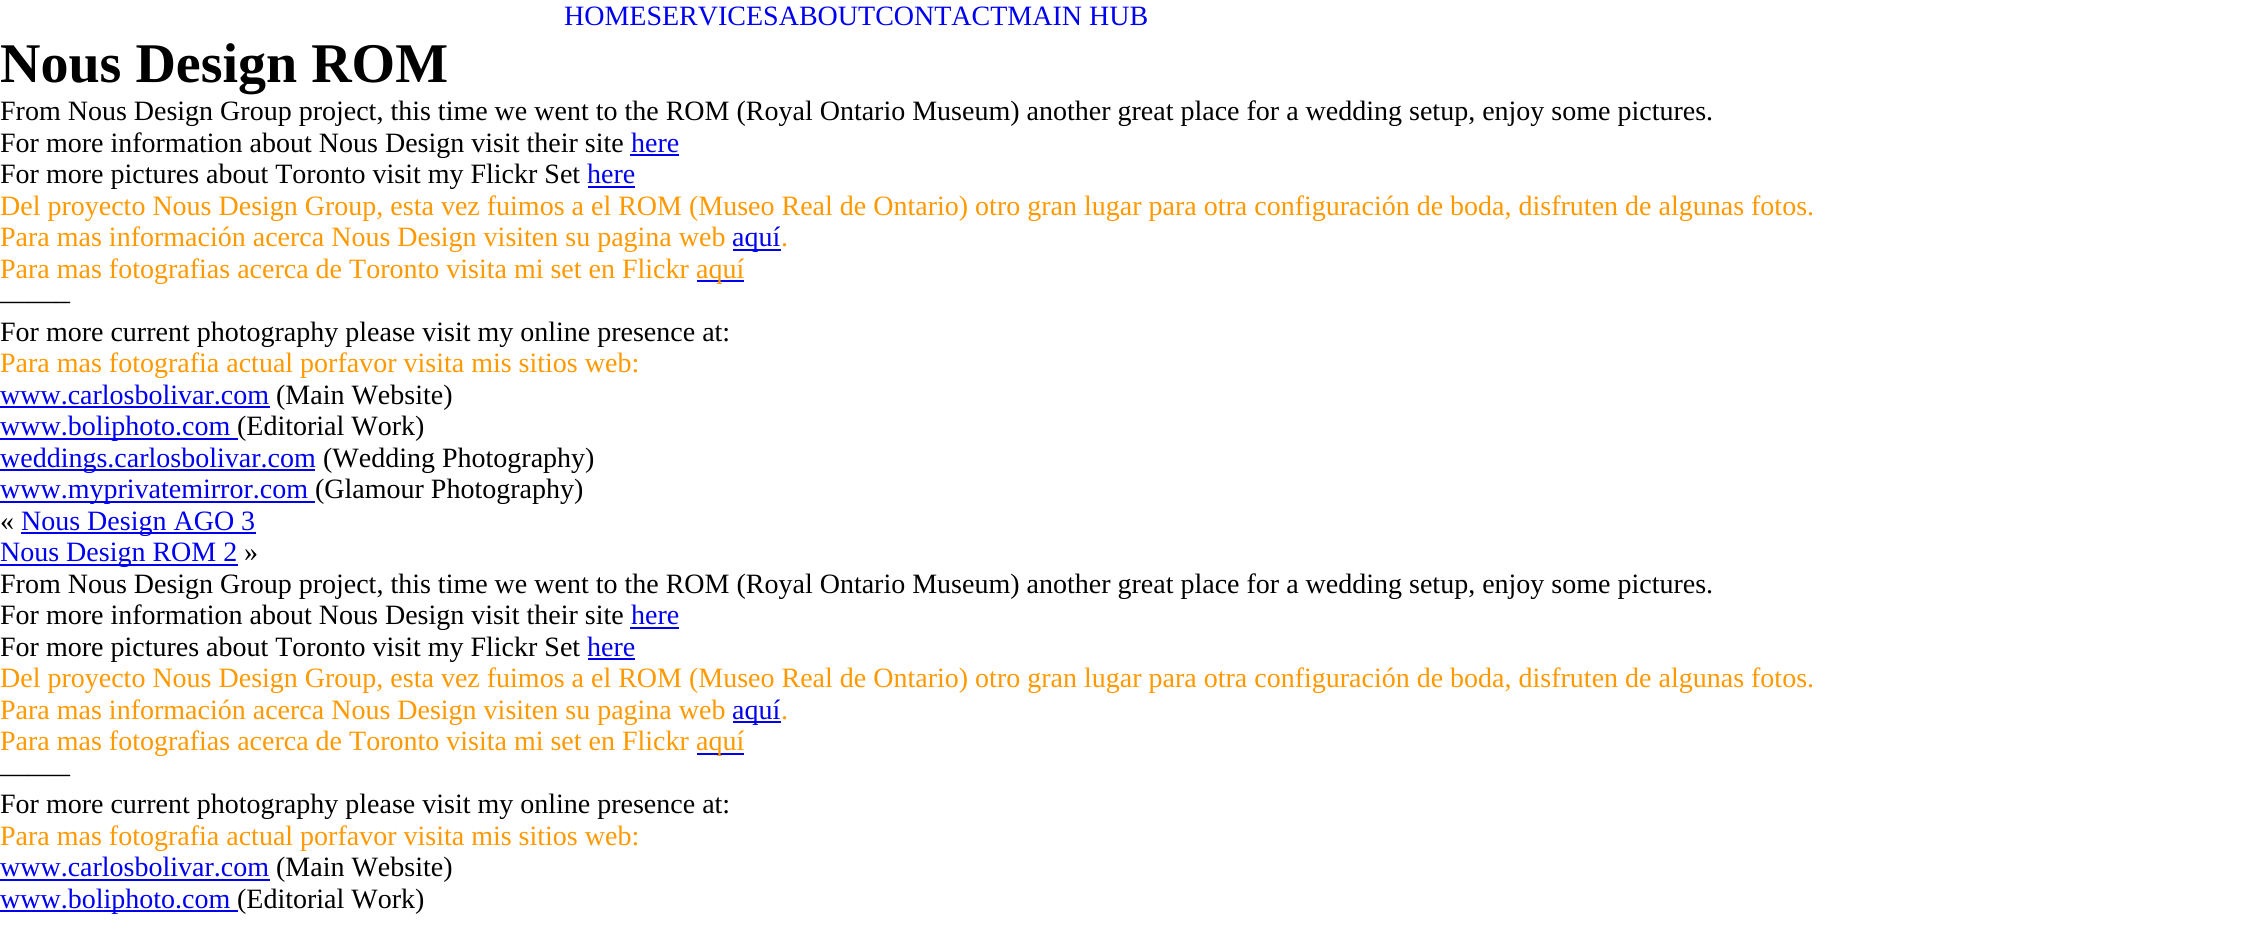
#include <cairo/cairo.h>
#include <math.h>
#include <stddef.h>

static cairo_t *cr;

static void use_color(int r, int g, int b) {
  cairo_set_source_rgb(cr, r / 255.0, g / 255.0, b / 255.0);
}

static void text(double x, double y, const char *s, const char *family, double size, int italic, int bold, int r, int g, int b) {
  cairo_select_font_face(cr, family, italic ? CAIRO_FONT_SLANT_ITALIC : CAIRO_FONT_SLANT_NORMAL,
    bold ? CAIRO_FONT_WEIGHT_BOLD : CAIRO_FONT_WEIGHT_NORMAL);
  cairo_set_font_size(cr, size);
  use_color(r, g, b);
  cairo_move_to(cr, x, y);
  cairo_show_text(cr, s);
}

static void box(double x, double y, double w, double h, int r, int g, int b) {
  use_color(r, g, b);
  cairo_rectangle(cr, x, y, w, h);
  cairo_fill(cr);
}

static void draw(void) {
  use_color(255, 255, 255);
  cairo_paint(cr);
  box(630, 154, 49, 2, 0, 0, 238);
  box(588, 186, 47, 2, 0, 0, 238);
  box(733, 249, 48, 2, 0, 0, 238);
  box(697, 280, 47, 2, 0, 0, 238);
  box(0, 406, 270, 2, 0, 0, 238);
  box(0, 438, 238, 2, 0, 0, 238);
  box(0, 469, 315, 2, 0, 0, 238);
  box(0, 501, 315, 2, 0, 0, 238);
  box(21, 532, 235, 2, 0, 0, 238);
  box(0, 564, 238, 2, 0, 0, 238);
  box(630, 627, 49, 2, 0, 0, 238);
  box(588, 658, 47, 2, 0, 0, 238);
  box(733, 721, 48, 2, 0, 0, 238);
  box(697, 753, 47, 2, 0, 0, 238);
  box(0, 879, 270, 2, 0, 0, 238);
  box(0, 910, 238, 2, 0, 0, 238);
  text(564, 25, "HOMESERVICESABOUTCONTACTMAIN HUB", "Liberation Serif", 28, 0, 0, 0, 0, 238);
  text(0, 82, "Nous Design ROM", "Liberation Serif", 56, 0, 1, 0, 0, 0);
  text(0, 120, "From Nous Design Group project, this time we went to the ROM (Royal Ontario Museum) another great place for a wedding setup, enjoy some pictures.", "Liberation Serif", 28, 0, 0, 0, 0, 0);
  text(0, 152, "For more information about Nous Design visit their site", "Liberation Serif", 28, 0, 0, 0, 0, 0);
  text(631, 152, "here", "Liberation Serif", 28, 0, 0, 0, 0, 238);
  text(0, 183, "For more pictures about Toronto visit my Flickr Set", "Liberation Serif", 28, 0, 0, 0, 0, 0);
  text(587, 183, "here", "Liberation Serif", 28, 0, 0, 0, 0, 238);
  text(0, 215, "Del proyecto Nous Design Group, esta vez fuimos a el ROM (Museo Real de Ontario) otro gran lugar para otra configuración de boda, disfruten de algunas fotos.", "Liberation Serif", 28, 0, 0, 255, 153, 0);
  text(0, 246, "Para mas información acerca Nous Design visiten su pagina web", "Liberation Serif", 28, 0, 0, 255, 153, 0);
  text(732, 246, "aquí", "Liberation Serif", 28, 0, 0, 0, 0, 238);
  text(781, 246, ".", "Liberation Serif", 28, 0, 0, 255, 153, 0);
  text(0, 278, "Para mas fotografias acerca de Toronto visita mi set en Flickr", "Liberation Serif", 28, 0, 0, 255, 153, 0);
  text(696, 278, "aquí", "Liberation Serif", 28, 0, 0, 255, 153, 0);
  text(0, 309, "——–", "Liberation Serif", 28, 0, 0, 0, 0, 0);
  text(0, 341, "For more current photography please visit my online presence at:", "Liberation Serif", 28, 0, 0, 0, 0, 0);
  text(0, 372, "Para mas fotografia actual porfavor visita mis sitios web:", "Liberation Serif", 28, 0, 0, 255, 153, 0);
  text(0, 404, "www.carlosbolivar.com", "Liberation Serif", 28, 0, 0, 0, 0, 238);
  text(276, 404, "(Main Website)", "Liberation Serif", 28, 0, 0, 0, 0, 0);
  text(0, 435, "www.boliphoto.com", "Liberation Serif", 28, 0, 0, 0, 0, 238);
  text(237, 435, "(Editorial Work)", "Liberation Serif", 28, 0, 0, 0, 0, 0);
  text(0, 467, "weddings.carlosbolivar.com", "Liberation Serif", 28, 0, 0, 0, 0, 238);
  text(323, 467, "(Wedding Photography)", "Liberation Serif", 28, 0, 0, 0, 0, 0);
  text(0, 498, "www.myprivatemirror.com", "Liberation Serif", 28, 0, 0, 0, 0, 238);
  text(315, 498, "(Glamour Photography)", "Liberation Serif", 28, 0, 0, 0, 0, 0);
  text(0, 530, "«", "Liberation Serif", 28, 0, 0, 0, 0, 0);
  text(21, 530, "Nous Design AGO 3", "Liberation Serif", 28, 0, 0, 0, 0, 238);
  text(0, 561, "Nous Design ROM 2", "Liberation Serif", 28, 0, 0, 0, 0, 238);
  text(244, 561, "»", "Liberation Serif", 28, 0, 0, 0, 0, 0);
  text(0, 593, "From Nous Design Group project, this time we went to the ROM (Royal Ontario Museum) another great place for a wedding setup, enjoy some pictures.", "Liberation Serif", 28, 0, 0, 0, 0, 0);
  text(0, 624, "For more information about Nous Design visit their site", "Liberation Serif", 28, 0, 0, 0, 0, 0);
  text(631, 624, "here", "Liberation Serif", 28, 0, 0, 0, 0, 238);
  text(0, 656, "For more pictures about Toronto visit my Flickr Set", "Liberation Serif", 28, 0, 0, 0, 0, 0);
  text(587, 656, "here", "Liberation Serif", 28, 0, 0, 0, 0, 238);
  text(0, 687, "Del proyecto Nous Design Group, esta vez fuimos a el ROM (Museo Real de Ontario) otro gran lugar para otra configuración de boda, disfruten de algunas fotos.", "Liberation Serif", 28, 0, 0, 255, 153, 0);
  text(0, 719, "Para mas información acerca Nous Design visiten su pagina web", "Liberation Serif", 28, 0, 0, 255, 153, 0);
  text(732, 719, "aquí", "Liberation Serif", 28, 0, 0, 0, 0, 238);
  text(781, 719, ".", "Liberation Serif", 28, 0, 0, 255, 153, 0);
  text(0, 750, "Para mas fotografias acerca de Toronto visita mi set en Flickr", "Liberation Serif", 28, 0, 0, 255, 153, 0);
  text(696, 750, "aquí", "Liberation Serif", 28, 0, 0, 255, 153, 0);
  text(0, 782, "——–", "Liberation Serif", 28, 0, 0, 0, 0, 0);
  text(0, 813, "For more current photography please visit my online presence at:", "Liberation Serif", 28, 0, 0, 0, 0, 0);
  text(0, 845, "Para mas fotografia actual porfavor visita mis sitios web:", "Liberation Serif", 28, 0, 0, 255, 153, 0);
  text(0, 876, "www.carlosbolivar.com", "Liberation Serif", 28, 0, 0, 0, 0, 238);
  text(276, 876, "(Main Website)", "Liberation Serif", 28, 0, 0, 0, 0, 0);
  text(0, 908, "www.boliphoto.com", "Liberation Serif", 28, 0, 0, 0, 0, 238);
  text(237, 908, "(Editorial Work)", "Liberation Serif", 28, 0, 0, 0, 0, 0);
}

int main(void) {
  cairo_surface_t *surface = cairo_image_surface_create(CAIRO_FORMAT_RGB24, 2253, 932);
  cr = cairo_create(surface);
  cairo_font_options_t *options = cairo_font_options_create();
  cairo_font_options_set_hint_metrics(options, CAIRO_HINT_METRICS_OFF);
  cairo_font_options_set_hint_style(options, CAIRO_HINT_STYLE_NONE);
  cairo_set_font_options(cr, options);
  cairo_set_miter_limit(cr, 4);
  draw();
  cairo_surface_write_to_png(surface, "out.png");
  cairo_font_options_destroy(options);
  cairo_destroy(cr);
  cairo_surface_destroy(surface);
  return 0;
}
